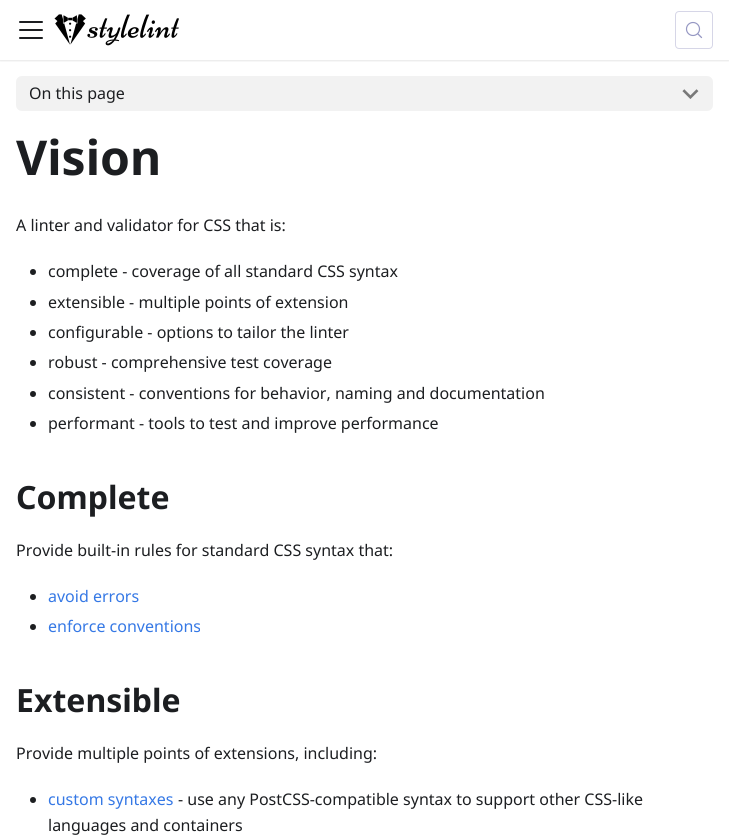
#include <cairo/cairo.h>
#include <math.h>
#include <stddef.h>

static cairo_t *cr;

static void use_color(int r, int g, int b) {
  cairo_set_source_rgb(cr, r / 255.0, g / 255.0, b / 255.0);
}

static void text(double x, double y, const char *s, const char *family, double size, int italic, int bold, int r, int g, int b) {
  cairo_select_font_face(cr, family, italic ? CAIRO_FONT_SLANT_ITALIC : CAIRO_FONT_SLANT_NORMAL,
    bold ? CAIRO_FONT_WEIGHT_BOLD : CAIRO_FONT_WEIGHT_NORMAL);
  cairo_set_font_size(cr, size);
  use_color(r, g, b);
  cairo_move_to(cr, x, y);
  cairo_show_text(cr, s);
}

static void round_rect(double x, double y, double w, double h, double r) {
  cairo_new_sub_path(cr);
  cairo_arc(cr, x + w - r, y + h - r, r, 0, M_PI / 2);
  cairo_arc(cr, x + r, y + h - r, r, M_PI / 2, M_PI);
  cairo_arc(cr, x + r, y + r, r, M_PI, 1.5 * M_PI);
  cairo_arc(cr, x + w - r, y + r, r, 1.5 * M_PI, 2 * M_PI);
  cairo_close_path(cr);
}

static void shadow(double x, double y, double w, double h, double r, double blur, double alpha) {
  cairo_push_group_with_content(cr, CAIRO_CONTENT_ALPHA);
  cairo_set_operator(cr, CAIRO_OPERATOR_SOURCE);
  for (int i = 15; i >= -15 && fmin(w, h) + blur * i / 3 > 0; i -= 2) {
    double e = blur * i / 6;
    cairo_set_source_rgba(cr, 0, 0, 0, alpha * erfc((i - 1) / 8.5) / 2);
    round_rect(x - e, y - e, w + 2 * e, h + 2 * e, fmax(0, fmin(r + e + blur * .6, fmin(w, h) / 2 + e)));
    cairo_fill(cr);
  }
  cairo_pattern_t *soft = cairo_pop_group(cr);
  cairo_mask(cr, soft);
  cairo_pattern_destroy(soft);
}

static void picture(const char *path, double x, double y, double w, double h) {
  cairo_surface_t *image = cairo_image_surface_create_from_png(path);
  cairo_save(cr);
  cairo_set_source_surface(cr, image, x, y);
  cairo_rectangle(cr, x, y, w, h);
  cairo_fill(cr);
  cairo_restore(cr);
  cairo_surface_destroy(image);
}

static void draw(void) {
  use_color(255, 255, 255);
  cairo_paint(cr);
  cairo_save(cr);
  cairo_rectangle(cr, 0, 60, 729, 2);
  cairo_clip(cr);
  use_color(0, 0, 0);
  shadow(0, 1, 729, 60, 0, 1, 0.1);
  cairo_restore(cr);
  picture("img_01.png", 19, 21, 24, 18);
  picture("img_02.png", 54, 14, 125, 32);
  round_rect(675.5, 11.5, 37, 37, 3.5);
  use_color(214, 214, 231);
  cairo_set_line_width(cr, 1);
  cairo_stroke(cr);
  cairo_arc(cr, 693, 29, 6.5, 0, 2 * M_PI);
  use_color(150, 152, 195);
  cairo_set_line_width(cr, 1.2);
  cairo_stroke(cr);
  cairo_new_path(cr);
  cairo_move_to(cr, 701.5, 37.5);
  cairo_line_to(cr, 698, 34);
  cairo_set_line_width(cr, 1.3);
  cairo_set_line_cap(cr, CAIRO_LINE_CAP_ROUND);
  cairo_set_line_join(cr, CAIRO_LINE_JOIN_ROUND);
  cairo_stroke(cr);
  use_color(242, 242, 242);
  round_rect(16, 76, 697, 35, 6);
  cairo_fill(cr);
  picture("img_03.png", 682, 89, 17, 10);
  use_color(28, 30, 33);
  cairo_arc(cr, 33, 272, 3, 0, 2 * M_PI);
  cairo_fill(cr);
  cairo_arc(cr, 33, 303, 3, 0, 2 * M_PI);
  cairo_fill(cr);
  cairo_arc(cr, 33, 333, 3, 0, 2 * M_PI);
  cairo_fill(cr);
  cairo_arc(cr, 33, 363, 3, 0, 2 * M_PI);
  cairo_fill(cr);
  cairo_arc(cr, 33, 394, 3, 0, 2 * M_PI);
  cairo_fill(cr);
  cairo_arc(cr, 33, 424, 3, 0, 2 * M_PI);
  cairo_fill(cr);
  cairo_arc(cr, 33, 597, 3, 0, 2 * M_PI);
  cairo_fill(cr);
  cairo_arc(cr, 33, 627, 3, 0, 2 * M_PI);
  cairo_fill(cr);
  cairo_arc(cr, 33, 800, 3, 0, 2 * M_PI);
  cairo_fill(cr);
  text(29, 99, "On this page", "Noto Sans", 16, 0, 0, 28, 30, 33);
  text(16, 175, "Vision", "Noto Sans", 48, 0, 1, 28, 30, 33);
  text(16, 231, "A linter and validator for CSS that is:", "Noto Sans", 16, 0, 0, 28, 30, 33);
  text(48, 277, "complete - coverage of all standard CSS syntax", "Noto Sans", 16, 0, 0, 28, 30, 33);
  text(48, 308, "extensible - multiple points of extension", "Noto Sans", 16, 0, 0, 28, 30, 33);
  text(48, 338, "configurable - options to tailor the linter", "Noto Sans", 16, 0, 0, 28, 30, 33);
  text(48, 368, "robust - comprehensive test coverage", "Noto Sans", 16, 0, 0, 28, 30, 33);
  text(48, 399, "consistent - conventions for behavior, naming and documentation", "Noto Sans", 16, 0, 0, 28, 30, 33);
  text(48, 429, "performant - tools to test and improve performance", "Noto Sans", 16, 0, 0, 28, 30, 33);
  text(16, 509, "Complete", "Noto Sans", 32, 0, 1, 28, 30, 33);
  text(16, 556, "Provide built-in rules for standard CSS syntax that:", "Noto Sans", 16, 0, 0, 28, 30, 33);
  text(48, 602, "avoid errors", "Noto Sans", 16, 0, 0, 53, 120, 229);
  text(48, 632, "enforce conventions", "Noto Sans", 16, 0, 0, 53, 120, 229);
  text(16, 712, "Extensible", "Noto Sans", 32, 0, 1, 28, 30, 33);
  text(16, 759, "Provide multiple points of extensions, including:", "Noto Sans", 16, 0, 0, 28, 30, 33);
  text(48, 805, "custom syntaxes", "Noto Sans", 16, 0, 0, 53, 120, 229);
  text(178, 805, "- use any PostCSS-compatible syntax to support other CSS-like", "Noto Sans", 16, 0, 0, 28, 30, 33);
  text(48, 831, "languages and containers", "Noto Sans", 16, 0, 0, 28, 30, 33);
}

int main(void) {
  cairo_surface_t *surface = cairo_image_surface_create(CAIRO_FORMAT_RGB24, 729, 838);
  cr = cairo_create(surface);
  cairo_font_options_t *options = cairo_font_options_create();
  cairo_font_options_set_hint_metrics(options, CAIRO_HINT_METRICS_OFF);
  cairo_font_options_set_hint_style(options, CAIRO_HINT_STYLE_NONE);
  cairo_set_font_options(cr, options);
  cairo_set_miter_limit(cr, 4);
  draw();
  cairo_surface_write_to_png(surface, "out.png");
  cairo_font_options_destroy(options);
  cairo_destroy(cr);
  cairo_surface_destroy(surface);
  return 0;
}
